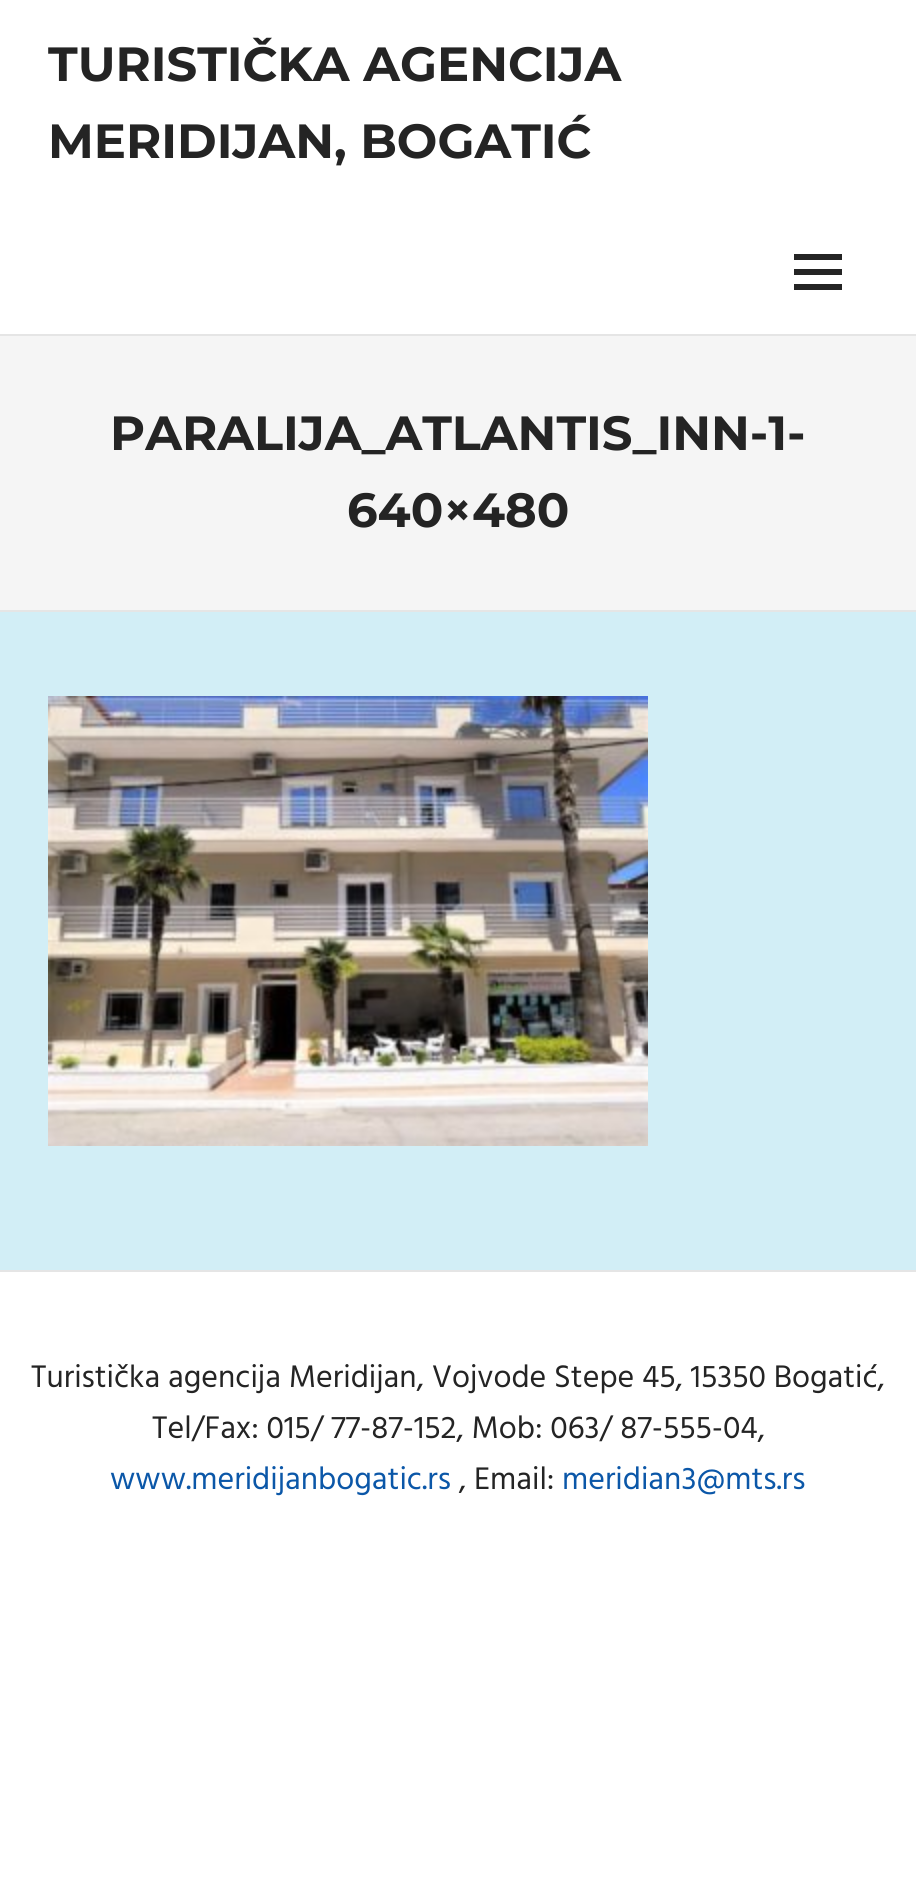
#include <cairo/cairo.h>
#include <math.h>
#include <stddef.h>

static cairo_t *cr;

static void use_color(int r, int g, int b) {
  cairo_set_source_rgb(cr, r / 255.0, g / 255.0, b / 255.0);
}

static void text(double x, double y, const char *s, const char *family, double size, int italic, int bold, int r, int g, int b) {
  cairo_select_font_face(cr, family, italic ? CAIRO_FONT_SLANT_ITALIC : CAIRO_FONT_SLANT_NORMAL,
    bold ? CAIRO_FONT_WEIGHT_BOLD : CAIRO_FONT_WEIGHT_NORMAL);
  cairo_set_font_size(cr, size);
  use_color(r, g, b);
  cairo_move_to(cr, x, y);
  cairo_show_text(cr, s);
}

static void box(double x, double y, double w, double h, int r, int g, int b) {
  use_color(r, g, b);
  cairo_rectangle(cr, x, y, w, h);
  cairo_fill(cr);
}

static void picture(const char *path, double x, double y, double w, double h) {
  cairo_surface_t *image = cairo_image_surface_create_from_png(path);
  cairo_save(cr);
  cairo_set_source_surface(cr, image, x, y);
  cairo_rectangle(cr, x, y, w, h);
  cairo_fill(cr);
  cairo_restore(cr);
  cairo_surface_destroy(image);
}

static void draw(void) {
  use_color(255, 255, 255);
  cairo_paint(cr);
  box(0, 334, 916, 2, 229, 229, 229);
  use_color(36, 36, 36);
  cairo_new_path(cr);
  cairo_move_to(cr, 794, 290);
  cairo_line_to(cr, 794, 284);
  cairo_line_to(cr, 842, 284);
  cairo_line_to(cr, 842, 290);
  cairo_close_path(cr);
  cairo_move_to(cr, 794, 254);
  cairo_line_to(cr, 842, 254);
  cairo_line_to(cr, 842, 260);
  cairo_line_to(cr, 794, 260);
  cairo_close_path(cr);
  cairo_move_to(cr, 794, 275);
  cairo_line_to(cr, 794, 269);
  cairo_line_to(cr, 842, 269);
  cairo_line_to(cr, 842, 275);
  cairo_close_path(cr);
  cairo_fill(cr);
  box(0, 336, 916, 274, 245, 245, 245);
  box(0, 610, 916, 2, 229, 229, 229);
  box(0, 612, 916, 658, 210, 238, 246);
  picture("img_01.png", 48, 696, 600, 450);
  box(0, 1270, 916, 2, 229, 229, 229);
  text(48, 81, "TURISTIČKA AGENCIJA", "Montserrat", 48, 0, 1, 36, 36, 36);
  text(48, 158, "MERIDIJAN, BOGATIĆ", "Montserrat", 48, 0, 1, 36, 36, 36);
  text(110, 450, "PARALIJA_ATLANTIS_INN-1-", "Montserrat", 48, 0, 1, 36, 36, 36);
  text(347, 527, "640×480", "Montserrat", 48, 0, 1, 36, 36, 36);
  text(31, 1387, "Turistička agencija Meridijan, Vojvode Stepe 45, 15350 Bogatić,", "Hind", 32, 0, 0, 36, 36, 36);
  text(152, 1438, "Tel/Fax: 015/ 77-87-152, Mob: 063/ 87-555-04,", "Hind", 32, 0, 0, 36, 36, 36);
  text(110, 1489, "www.meridijanbogatic.rs", "Hind", 32, 0, 0, 11, 87, 168);
  text(459, 1489, ", Email:", "Hind", 32, 0, 0, 36, 36, 36);
  text(562, 1489, "meridian3@mts.rs", "Hind", 32, 0, 0, 11, 87, 168);
}

int main(void) {
  cairo_surface_t *surface = cairo_image_surface_create(CAIRO_FORMAT_RGB24, 916, 1902);
  cr = cairo_create(surface);
  cairo_font_options_t *options = cairo_font_options_create();
  cairo_font_options_set_hint_metrics(options, CAIRO_HINT_METRICS_OFF);
  cairo_font_options_set_hint_style(options, CAIRO_HINT_STYLE_NONE);
  cairo_set_font_options(cr, options);
  cairo_set_miter_limit(cr, 4);
  draw();
  cairo_surface_write_to_png(surface, "out.png");
  cairo_font_options_destroy(options);
  cairo_destroy(cr);
  cairo_surface_destroy(surface);
  return 0;
}
